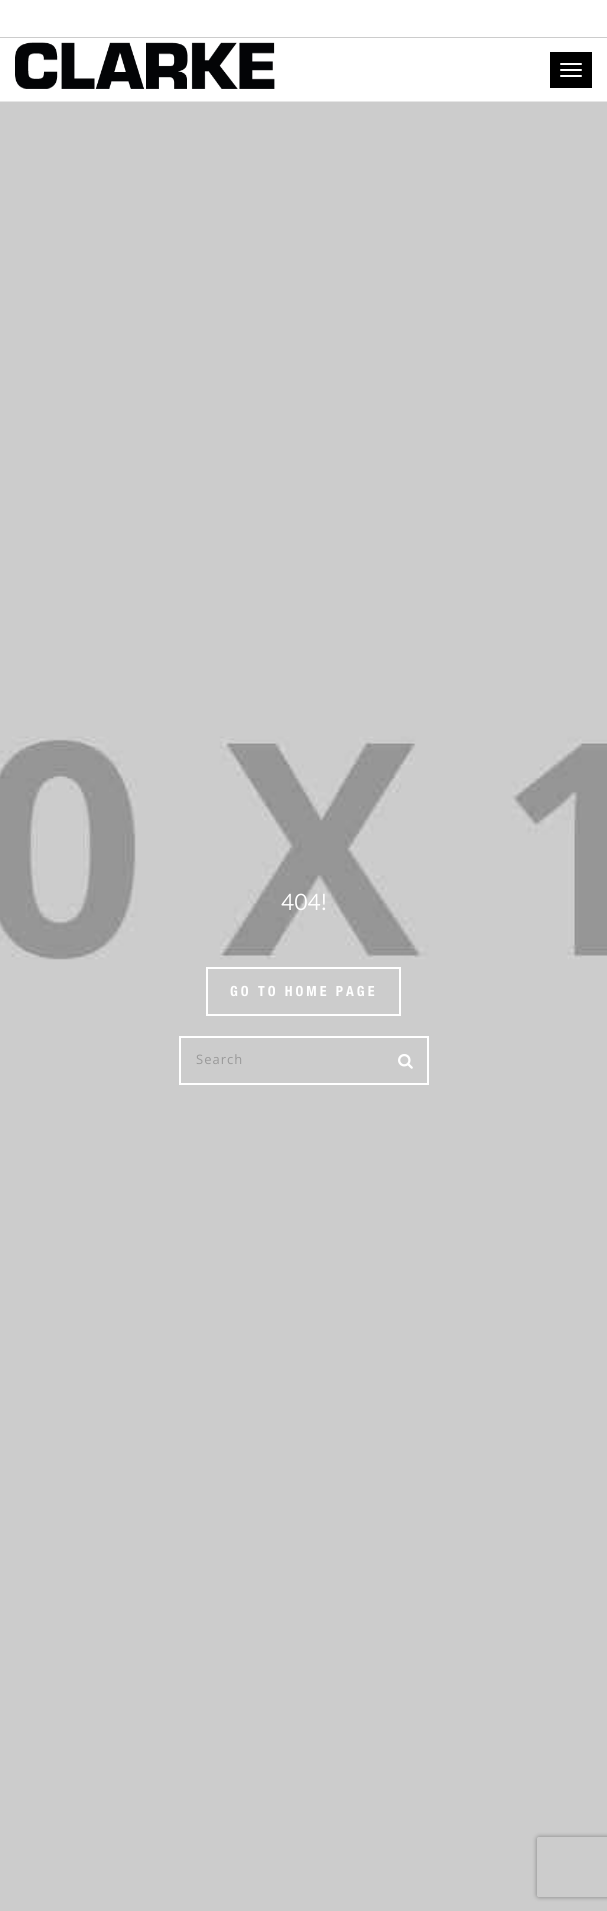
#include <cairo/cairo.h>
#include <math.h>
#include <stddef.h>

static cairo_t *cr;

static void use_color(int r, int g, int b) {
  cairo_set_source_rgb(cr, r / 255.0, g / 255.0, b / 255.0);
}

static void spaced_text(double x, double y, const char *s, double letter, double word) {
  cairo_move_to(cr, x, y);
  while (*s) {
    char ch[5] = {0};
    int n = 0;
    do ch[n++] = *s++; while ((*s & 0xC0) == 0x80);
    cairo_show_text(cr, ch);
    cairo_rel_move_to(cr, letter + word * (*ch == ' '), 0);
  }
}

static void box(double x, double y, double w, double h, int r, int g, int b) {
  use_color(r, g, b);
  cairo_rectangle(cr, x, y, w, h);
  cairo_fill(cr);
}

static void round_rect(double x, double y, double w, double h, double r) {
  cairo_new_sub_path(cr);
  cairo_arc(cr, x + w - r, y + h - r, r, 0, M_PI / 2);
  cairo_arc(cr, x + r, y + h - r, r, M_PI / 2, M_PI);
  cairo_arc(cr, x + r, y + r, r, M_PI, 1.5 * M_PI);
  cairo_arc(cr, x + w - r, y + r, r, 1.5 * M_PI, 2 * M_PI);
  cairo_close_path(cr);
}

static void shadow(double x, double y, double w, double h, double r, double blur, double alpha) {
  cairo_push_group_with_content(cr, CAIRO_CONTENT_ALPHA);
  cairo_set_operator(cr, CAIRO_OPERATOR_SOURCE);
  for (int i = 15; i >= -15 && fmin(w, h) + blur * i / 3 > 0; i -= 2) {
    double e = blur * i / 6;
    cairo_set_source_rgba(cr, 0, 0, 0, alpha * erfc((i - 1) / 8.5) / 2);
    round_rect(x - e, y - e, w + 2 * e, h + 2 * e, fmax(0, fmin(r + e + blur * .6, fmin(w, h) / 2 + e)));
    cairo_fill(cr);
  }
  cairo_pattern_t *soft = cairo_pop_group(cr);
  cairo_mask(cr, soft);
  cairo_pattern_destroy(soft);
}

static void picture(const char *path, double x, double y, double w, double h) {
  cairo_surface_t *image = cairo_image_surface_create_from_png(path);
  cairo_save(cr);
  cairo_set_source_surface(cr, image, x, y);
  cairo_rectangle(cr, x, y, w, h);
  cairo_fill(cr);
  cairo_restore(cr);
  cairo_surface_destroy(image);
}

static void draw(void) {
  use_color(255, 255, 255);
  cairo_paint(cr);
  box(0, 37, 607, 1, 204, 204, 204);
  box(0, 101, 607, 1, 230, 230, 230);
  picture("img_01.png", 15, 42, 260, 47);
  box(550, 52, 42, 36, 0, 0, 0);
  use_color(255, 255, 255);
  round_rect(560, 63, 22, 2, 1);
  cairo_fill(cr);
  round_rect(560, 69, 22, 2, 1);
  cairo_fill(cr);
  round_rect(560, 75, 22, 2, 1);
  cairo_fill(cr);
  picture("img_02.png", 0, 102, 607, 1809);
  cairo_rectangle(cr, 207, 968, 193, 47);
  cairo_stroke(cr);
  cairo_rectangle(cr, 180, 1037, 248, 47);
  cairo_stroke(cr);
  picture("img_03.png", 398, 1054, 15, 15);
  cairo_save(cr);
  cairo_set_fill_rule(cr, CAIRO_FILL_RULE_EVEN_ODD);
  cairo_new_path(cr);
  cairo_move_to(cr, 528, 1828);
  cairo_line_to(cr, 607, 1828);
  cairo_line_to(cr, 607, 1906);
  cairo_line_to(cr, 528, 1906);
  cairo_close_path(cr);
  cairo_move_to(cr, 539, 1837);
  cairo_line_to(cr, 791, 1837);
  cairo_curve_to(cr, 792, 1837, 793, 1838, 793, 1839);
  cairo_line_to(cr, 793, 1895);
  cairo_curve_to(cr, 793, 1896, 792, 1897, 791, 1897);
  cairo_line_to(cr, 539, 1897);
  cairo_curve_to(cr, 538, 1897, 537, 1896, 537, 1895);
  cairo_line_to(cr, 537, 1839);
  cairo_curve_to(cr, 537, 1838, 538, 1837, 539, 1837);
  cairo_close_path(cr);
  cairo_clip(cr);
  use_color(128, 128, 128);
  shadow(537, 1837, 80, 60, 2, 2.5, 1);
  cairo_restore(cr);
  cairo_select_font_face(cr, "Lato", CAIRO_FONT_SLANT_NORMAL, CAIRO_FONT_WEIGHT_BOLD);
  cairo_set_font_size(cr, 22);
  spaced_text(281, 910, "404!", 0.5, 0);
  cairo_select_font_face(cr, "Helvetica Neue", CAIRO_FONT_SLANT_NORMAL, CAIRO_FONT_WEIGHT_BOLD);
  cairo_set_font_size(cr, 14);
  spaced_text(230, 996, "GO TO HOME PAGE", 3, 0);
  cairo_select_font_face(cr, "Open Sans", CAIRO_FONT_SLANT_NORMAL, CAIRO_FONT_WEIGHT_NORMAL);
  cairo_set_font_size(cr, 13);
  use_color(153, 153, 153);
  spaced_text(196, 1064, "Search", 1, 0);
}

int main(void) {
  cairo_surface_t *surface = cairo_image_surface_create(CAIRO_FORMAT_RGB24, 607, 1911);
  cr = cairo_create(surface);
  cairo_font_options_t *options = cairo_font_options_create();
  cairo_font_options_set_hint_metrics(options, CAIRO_HINT_METRICS_OFF);
  cairo_font_options_set_hint_style(options, CAIRO_HINT_STYLE_NONE);
  cairo_set_font_options(cr, options);
  cairo_set_miter_limit(cr, 4);
  draw();
  cairo_surface_write_to_png(surface, "out.png");
  cairo_font_options_destroy(options);
  cairo_destroy(cr);
  cairo_surface_destroy(surface);
  return 0;
}
